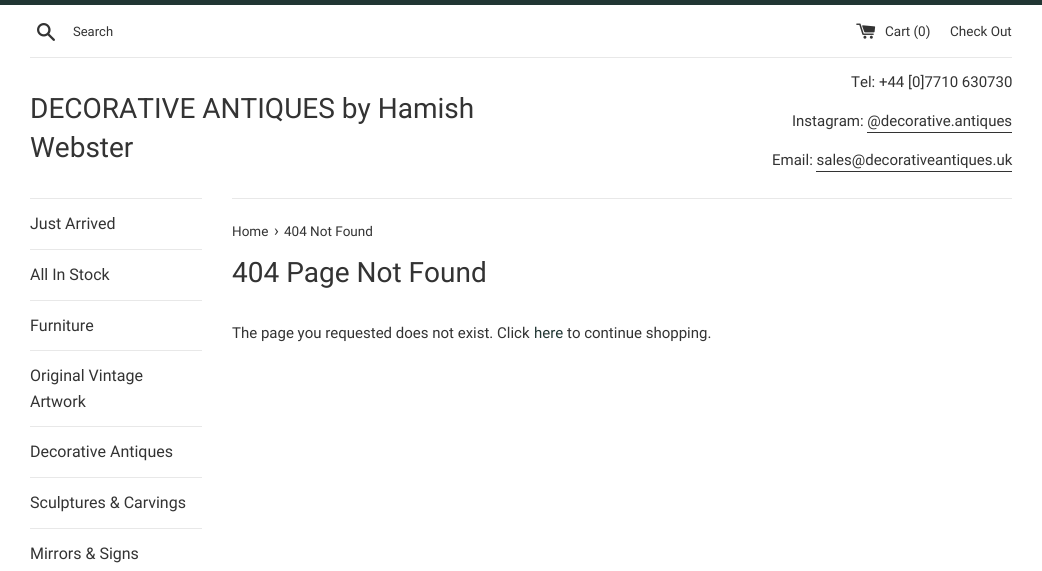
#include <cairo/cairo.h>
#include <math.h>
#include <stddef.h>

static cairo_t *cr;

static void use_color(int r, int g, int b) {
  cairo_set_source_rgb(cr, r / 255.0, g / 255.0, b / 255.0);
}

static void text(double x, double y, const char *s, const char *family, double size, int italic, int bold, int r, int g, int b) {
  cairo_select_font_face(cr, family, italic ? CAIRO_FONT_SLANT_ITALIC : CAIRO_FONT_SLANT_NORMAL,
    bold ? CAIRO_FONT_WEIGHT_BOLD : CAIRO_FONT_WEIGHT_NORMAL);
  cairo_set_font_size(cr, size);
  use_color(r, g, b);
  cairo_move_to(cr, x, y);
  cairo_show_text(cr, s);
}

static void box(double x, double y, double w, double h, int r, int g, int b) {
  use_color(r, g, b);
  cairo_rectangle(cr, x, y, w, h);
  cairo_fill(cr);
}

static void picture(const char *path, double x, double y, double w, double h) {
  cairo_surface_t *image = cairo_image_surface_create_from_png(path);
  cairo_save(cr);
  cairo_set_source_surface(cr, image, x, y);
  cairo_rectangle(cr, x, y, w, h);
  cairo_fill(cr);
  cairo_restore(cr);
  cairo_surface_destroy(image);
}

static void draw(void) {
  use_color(255, 255, 255);
  cairo_paint(cr);
  box(0, 0, 1042, 5, 33, 54, 51);
  picture("img_01.png", 37, 23, 18, 18);
  picture("img_02.png", 856, 23, 20, 16);
  box(30, 57, 982, 1, 232, 232, 232);
  box(867, 132, 145, 1, 51, 51, 51);
  box(816, 171, 196, 1, 51, 51, 51);
  box(30, 198, 172, 1, 232, 232, 232);
  box(30, 249, 172, 1, 232, 232, 232);
  box(30, 300, 172, 1, 232, 232, 232);
  box(30, 350, 172, 1, 232, 232, 232);
  box(30, 426, 172, 1, 232, 232, 232);
  box(30, 477, 172, 1, 232, 232, 232);
  box(30, 528, 172, 1, 232, 232, 232);
  box(232, 198, 780, 1, 232, 232, 232);
  text(73, 36, "Search", "Roboto", 13, 0, 0, 51, 51, 51);
  text(885, 36, "Cart (0)", "Roboto", 13.5, 0, 0, 51, 51, 51);
  text(950, 36, "Check Out", "Roboto", 13.5, 0, 0, 51, 51, 51);
  text(30, 118, "DECORATIVE ANTIQUES by Hamish", "Roboto", 28, 0, 0, 51, 51, 51);
  text(30, 157, "Webster", "Roboto", 28, 0, 0, 51, 51, 51);
  text(851, 87, "Tel: +44 [0]7710 630730", "Roboto", 15, 0, 0, 51, 51, 51);
  text(792, 126, "Instagram: @decorative.antiques", "Roboto", 15, 0, 0, 51, 51, 51);
  text(772, 165, "Email: sales@decorativeantiques.uk", "Roboto", 15, 0, 0, 51, 51, 51);
  text(30, 229, "Just Arrived", "Roboto", 16, 0, 0, 51, 51, 51);
  text(30, 280, "All In Stock", "Roboto", 16, 0, 0, 51, 51, 51);
  text(30, 331, "Furniture", "Roboto", 16, 0, 0, 51, 51, 51);
  text(30, 381, "Original Vintage", "Roboto", 16, 0, 0, 51, 51, 51);
  text(30, 407, "Artwork", "Roboto", 16, 0, 0, 51, 51, 51);
  text(30, 457, "Decorative Antiques", "Roboto", 16, 0, 0, 51, 51, 51);
  text(30, 508, "Sculptures & Carvings", "Roboto", 16, 0, 0, 51, 51, 51);
  text(30, 559, "Mirrors & Signs", "Roboto", 16, 0, 0, 51, 51, 51);
  text(232, 236, "Home", "Roboto", 13.5, 0, 0, 51, 51, 51);
  text(274, 236, "›", "Roboto", 16, 0, 0, 51, 51, 51);
  text(284, 236, "404 Not Found", "Roboto", 13.5, 0, 0, 51, 51, 51);
  text(232, 282, "404 Page Not Found", "Roboto", 28, 0, 0, 51, 51, 51);
  text(232, 338, "The page you requested does not exist. Click", "Roboto", 15, 0, 0, 51, 51, 51);
  text(534, 338, "here", "Roboto", 15, 0, 0, 33, 54, 51);
  text(567, 338, "to continue shopping.", "Roboto", 15, 0, 0, 51, 51, 51);
}

int main(void) {
  cairo_surface_t *surface = cairo_image_surface_create(CAIRO_FORMAT_RGB24, 1042, 571);
  cr = cairo_create(surface);
  cairo_font_options_t *options = cairo_font_options_create();
  cairo_font_options_set_hint_metrics(options, CAIRO_HINT_METRICS_OFF);
  cairo_font_options_set_hint_style(options, CAIRO_HINT_STYLE_NONE);
  cairo_set_font_options(cr, options);
  cairo_set_miter_limit(cr, 4);
  draw();
  cairo_surface_write_to_png(surface, "out.png");
  cairo_font_options_destroy(options);
  cairo_destroy(cr);
  cairo_surface_destroy(surface);
  return 0;
}
